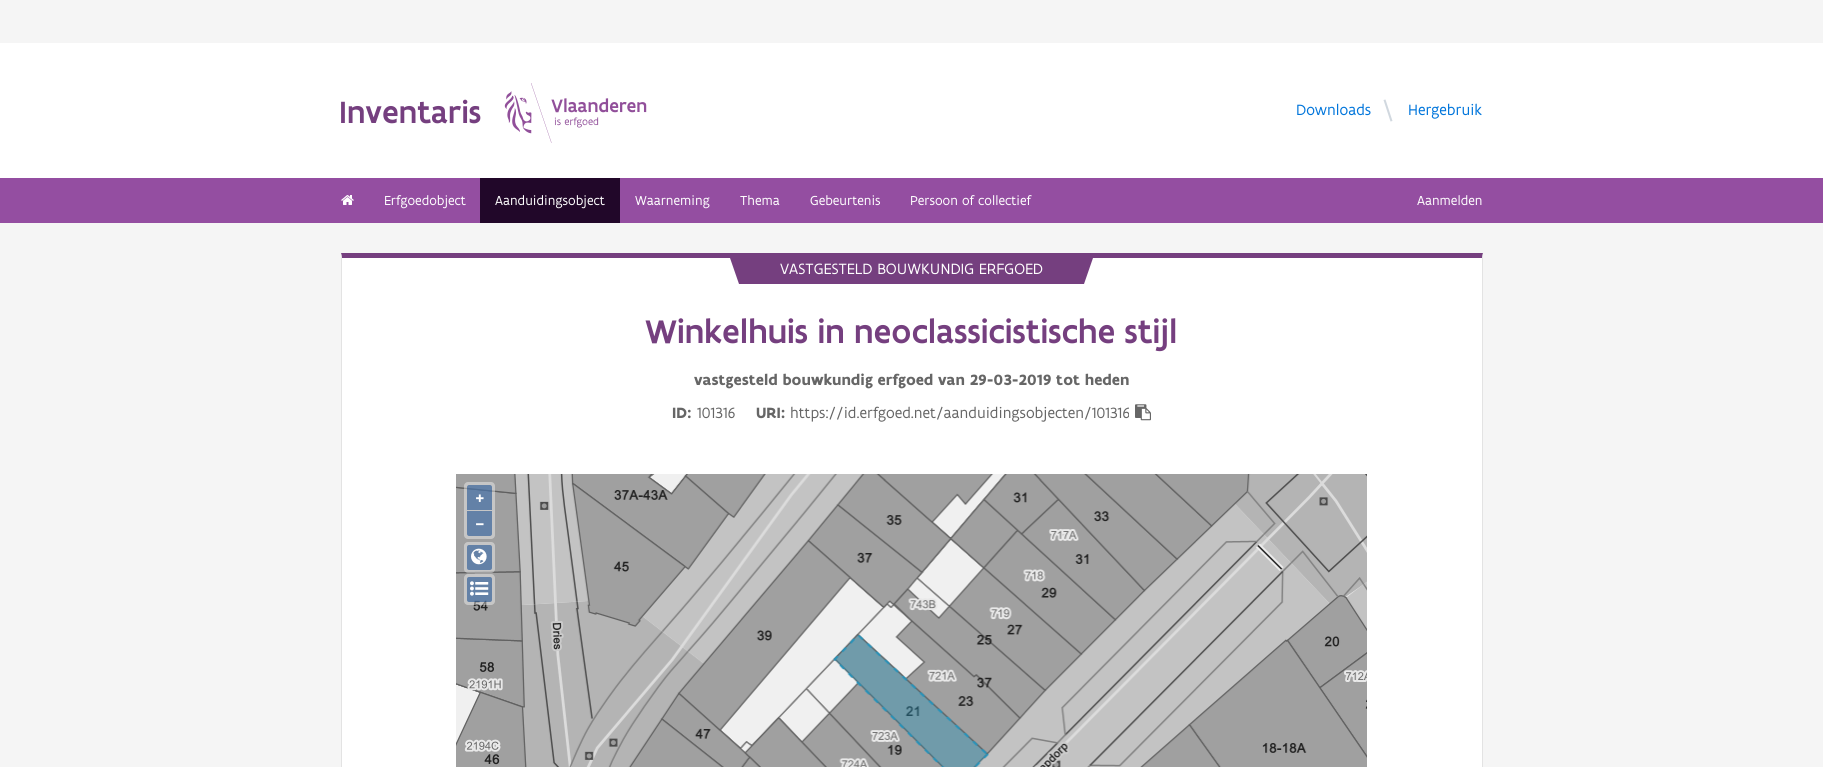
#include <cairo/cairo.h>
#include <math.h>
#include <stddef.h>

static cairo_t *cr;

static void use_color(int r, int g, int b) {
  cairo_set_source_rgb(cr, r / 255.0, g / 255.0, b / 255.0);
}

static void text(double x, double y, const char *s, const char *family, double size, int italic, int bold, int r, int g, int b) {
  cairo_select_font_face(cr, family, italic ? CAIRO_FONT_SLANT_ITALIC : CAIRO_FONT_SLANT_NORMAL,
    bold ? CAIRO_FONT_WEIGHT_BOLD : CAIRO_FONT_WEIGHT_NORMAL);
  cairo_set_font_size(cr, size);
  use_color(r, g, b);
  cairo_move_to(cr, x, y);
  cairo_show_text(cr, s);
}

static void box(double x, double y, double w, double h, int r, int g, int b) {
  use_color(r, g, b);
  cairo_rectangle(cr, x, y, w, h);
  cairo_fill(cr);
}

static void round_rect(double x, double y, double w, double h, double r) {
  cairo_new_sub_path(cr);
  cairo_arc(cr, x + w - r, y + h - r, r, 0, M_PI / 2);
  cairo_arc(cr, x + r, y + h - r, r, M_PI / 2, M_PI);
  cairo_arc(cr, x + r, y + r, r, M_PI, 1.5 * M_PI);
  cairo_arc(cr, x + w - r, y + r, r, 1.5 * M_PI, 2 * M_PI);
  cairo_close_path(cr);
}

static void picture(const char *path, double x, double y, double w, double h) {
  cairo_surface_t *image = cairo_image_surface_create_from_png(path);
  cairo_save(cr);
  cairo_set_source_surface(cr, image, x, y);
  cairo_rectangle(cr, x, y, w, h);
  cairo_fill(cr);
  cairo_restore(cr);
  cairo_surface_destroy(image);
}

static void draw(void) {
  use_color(245, 245, 245);
  cairo_paint(cr);
  box(0, 43, 1823, 135, 255, 255, 255);
  picture("img_01.png", 504, 83, 143, 60);
  use_color(209, 216, 223);
  cairo_new_path(cr);
  cairo_move_to(cr, 1383.5, 100);
  cairo_line_to(cr, 1385.5, 99.5);
  cairo_line_to(cr, 1392.5, 121);
  cairo_line_to(cr, 1390.5, 121.5);
  cairo_close_path(cr);
  cairo_fill(cr);
  box(0, 178, 1823, 45, 148, 78, 161);
  picture("img_02.png", 341, 195, 13, 10);
  box(480, 178, 140, 45, 33, 7, 41);
  box(342, 258, 1140, 509, 255, 255, 255);
  use_color(117, 63, 127);
  cairo_new_path(cr);
  cairo_move_to(cr, 341, 253);
  cairo_line_to(cr, 1483, 253);
  cairo_line_to(cr, 1482, 258);
  cairo_line_to(cr, 342, 258);
  cairo_close_path(cr);
  cairo_fill(cr);
  use_color(227, 227, 227);
  cairo_new_path(cr);
  cairo_move_to(cr, 1483, 253);
  cairo_line_to(cr, 1483, 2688);
  cairo_line_to(cr, 1482, 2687);
  cairo_line_to(cr, 1482, 258);
  cairo_close_path(cr);
  cairo_fill(cr);
  cairo_new_path(cr);
  cairo_move_to(cr, 341, 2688);
  cairo_line_to(cr, 341, 253);
  cairo_line_to(cr, 342, 258);
  cairo_line_to(cr, 342, 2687);
  cairo_close_path(cr);
  cairo_fill(cr);
  use_color(117, 63, 127);
  cairo_new_path(cr);
  cairo_move_to(cr, 730, 258);
  cairo_line_to(cr, 1025, 258);
  cairo_line_to(cr, 1034, 284);
  cairo_line_to(cr, 739, 284);
  cairo_close_path(cr);
  cairo_fill(cr);
  cairo_new_path(cr);
  cairo_move_to(cr, 798, 258);
  cairo_line_to(cr, 1093, 258);
  cairo_line_to(cr, 1084, 284);
  cairo_line_to(cr, 789, 284);
  cairo_close_path(cr);
  cairo_fill(cr);
  picture("img_03.png", 1135, 404, 16, 17);
  picture("img_04.png", 456, 474, 911, 293);
  cairo_set_source_rgba(cr, 1, 1, 1, 0.4);
  round_rect(464, 482, 31, 57, 4);
  cairo_fill(cr);
  cairo_set_source_rgba(cr, 0, 0.235, 0.533, 0.5);
  cairo_new_path(cr);
  cairo_move_to(cr, 469, 485);
  cairo_line_to(cr, 490, 485);
  cairo_curve_to(cr, 491, 485, 492, 486, 492, 487);
  cairo_line_to(cr, 492, 510);
  cairo_line_to(cr, 467, 510);
  cairo_line_to(cr, 467, 487);
  cairo_curve_to(cr, 467, 486, 468, 485, 469, 485);
  cairo_close_path(cr);
  cairo_fill(cr);
  use_color(99, 129, 167);
  cairo_new_path(cr);
  cairo_move_to(cr, 467, 511);
  cairo_line_to(cr, 492, 511);
  cairo_line_to(cr, 492, 534);
  cairo_curve_to(cr, 492, 535, 491, 536, 490, 536);
  cairo_line_to(cr, 469, 536);
  cairo_curve_to(cr, 468, 536, 467, 535, 467, 534);
  cairo_close_path(cr);
  cairo_fill(cr);
  cairo_set_source_rgba(cr, 1, 1, 1, 0.4);
  round_rect(464, 542, 31, 31, 4);
  cairo_fill(cr);
  use_color(99, 129, 167);
  round_rect(467, 545, 25, 25, 2);
  cairo_fill(cr);
  picture("img_05.png", 471, 548, 16, 17);
  cairo_set_source_rgba(cr, 1, 1, 1, 0.4);
  round_rect(464, 574, 31, 31, 4);
  cairo_fill(cr);
  cairo_set_source_rgba(cr, 0, 0.235, 0.533, 0.5);
  round_rect(467, 577, 25, 25, 2);
  cairo_fill(cr);
  picture("img_06.png", 470, 581, 19, 15);
  text(339, 123, "Inventaris", "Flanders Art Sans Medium", 33, 0, 0, 117, 63, 127);
  text(1296, 115, "Downloads", "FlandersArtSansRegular", 16, 0, 0, 0, 117, 219);
  text(1408, 115, "Hergebruik", "FlandersArtSansRegular", 16, 0, 0, 0, 117, 219);
  text(384, 205, "Erfgoedobject", "FlandersArtSansRegular", 14, 0, 0, 255, 255, 255);
  text(495, 205, "Aanduidingsobject", "FlandersArtSansRegular", 14, 0, 0, 255, 255, 255);
  text(635, 205, "Waarneming", "FlandersArtSansRegular", 14, 0, 0, 255, 255, 255);
  text(740, 205, "Thema", "FlandersArtSansRegular", 14, 0, 0, 255, 255, 255);
  text(810, 205, "Gebeurtenis", "FlandersArtSansRegular", 14, 0, 0, 255, 255, 255);
  text(910, 205, "Persoon of collectief", "FlandersArtSansRegular", 14, 0, 0, 255, 255, 255);
  text(1417, 205, "Aanmelden", "FlandersArtSansRegular", 14, 0, 0, 255, 255, 255);
  text(780, 274, "VASTGESTELD BOUWKUNDIG ERFGOED", "FlandersArtSansRegular", 16, 0, 0, 255, 255, 255);
  text(645, 343, "Winkelhuis in neoclassicistische stijl", "Flanders Art Sans Medium", 35, 0, 0, 117, 63, 127);
  text(694, 385, "vastgesteld bouwkundig erfgoed van 29-03-2019 tot heden", "Flanders Art Sans", 16, 0, 1, 102, 102, 102);
  text(672, 418, "ID:", "Flanders Art Sans", 16, 0, 1, 102, 102, 102);
  text(697, 418, "101316", "FlandersArtSansRegular", 16, 0, 0, 102, 102, 102);
  text(756, 418, "URI:", "Flanders Art Sans", 16, 0, 1, 102, 102, 102);
  text(790, 418, "https://id.erfgoed.net/aanduidingsobjecten/101316", "FlandersArtSansRegular", 16, 0, 0, 102, 102, 102);
  text(475, 503, "+", "FlandersArtSansRegular", 18, 0, 1, 255, 255, 255);
  text(475, 529, "−", "FlandersArtSansRegular", 18, 0, 1, 255, 255, 255);
}

int main(void) {
  cairo_surface_t *surface = cairo_image_surface_create(CAIRO_FORMAT_RGB24, 1823, 767);
  cr = cairo_create(surface);
  cairo_font_options_t *options = cairo_font_options_create();
  cairo_font_options_set_hint_metrics(options, CAIRO_HINT_METRICS_OFF);
  cairo_font_options_set_hint_style(options, CAIRO_HINT_STYLE_NONE);
  cairo_set_font_options(cr, options);
  cairo_set_miter_limit(cr, 4);
  draw();
  cairo_surface_write_to_png(surface, "out.png");
  cairo_font_options_destroy(options);
  cairo_destroy(cr);
  cairo_surface_destroy(surface);
  return 0;
}
